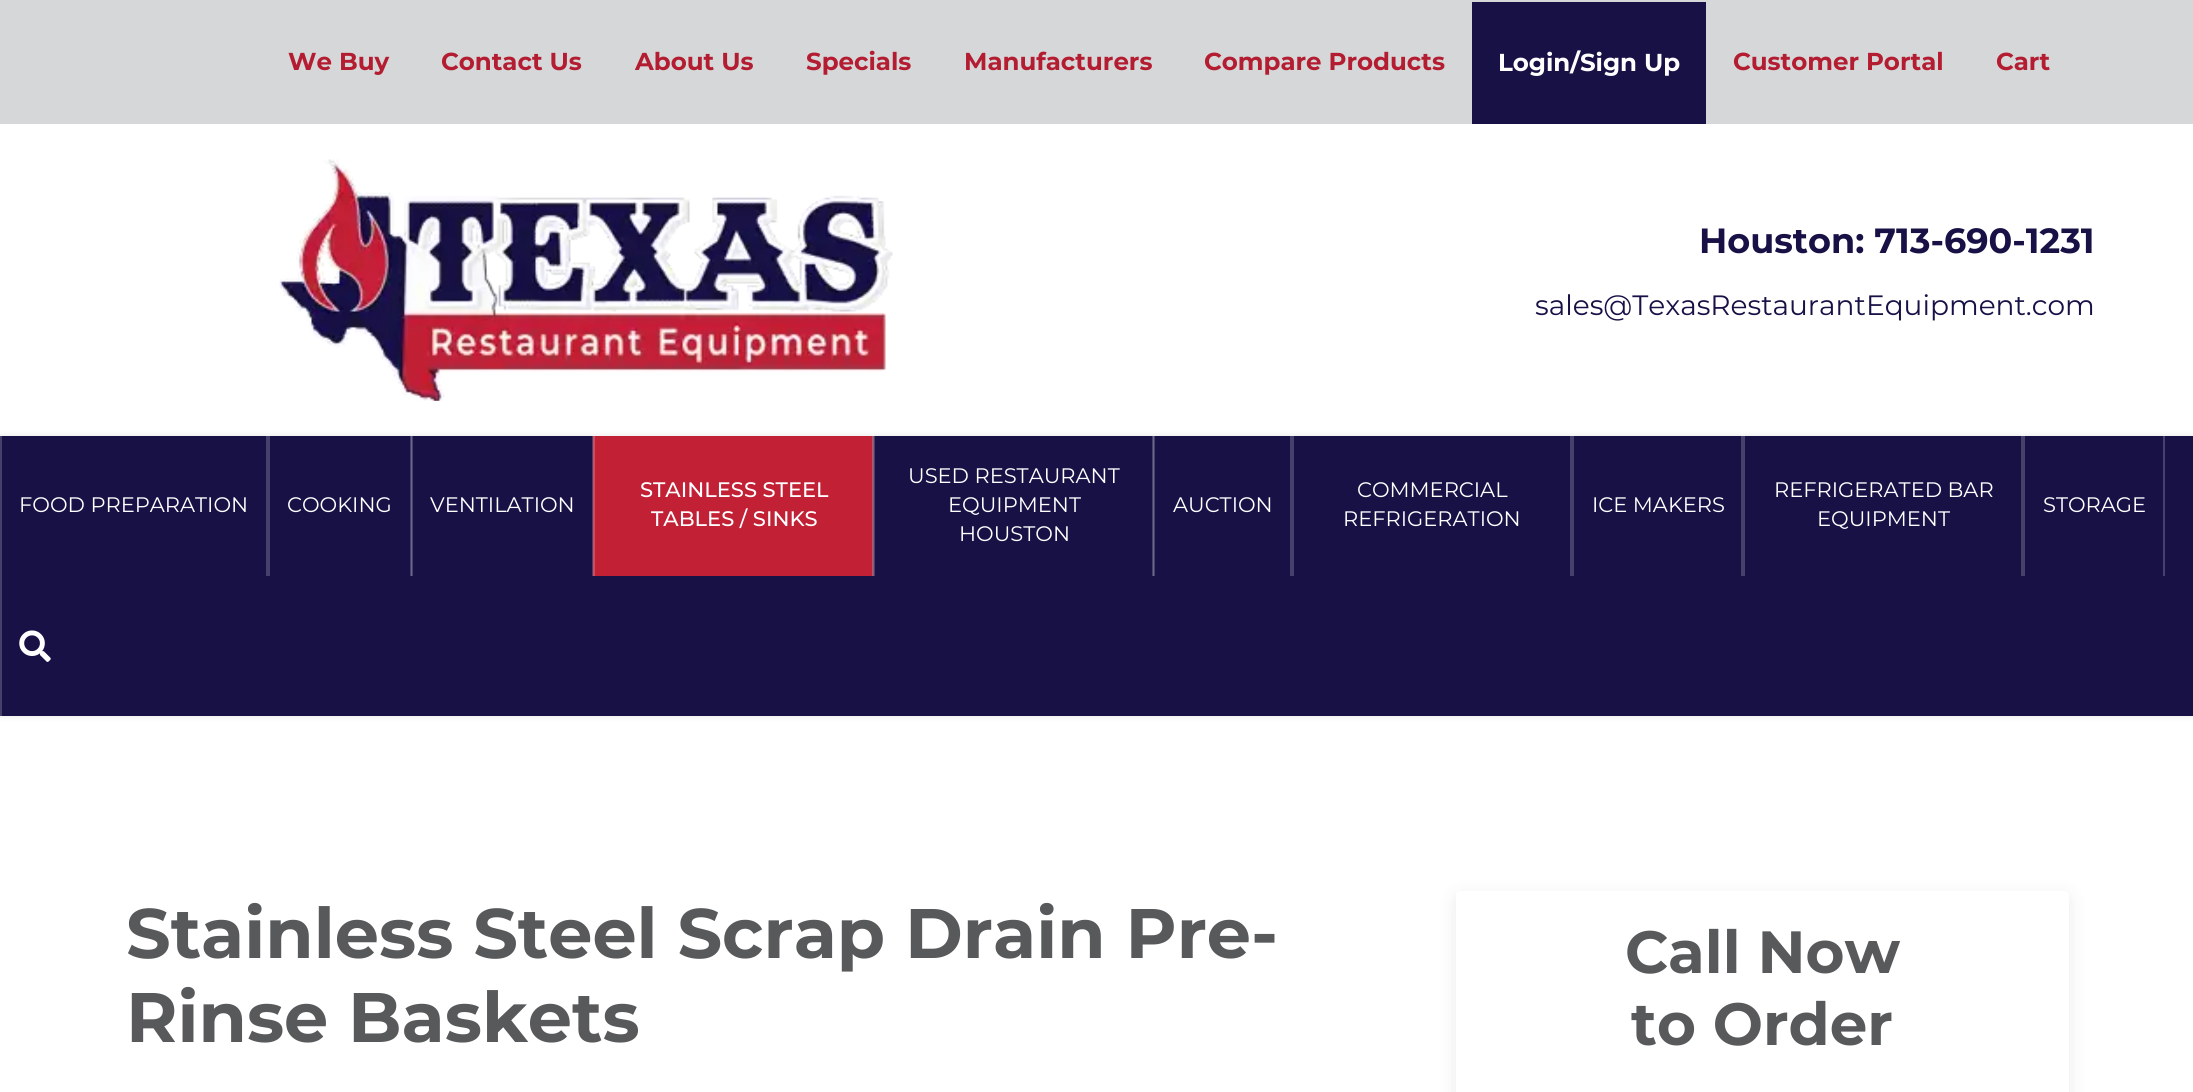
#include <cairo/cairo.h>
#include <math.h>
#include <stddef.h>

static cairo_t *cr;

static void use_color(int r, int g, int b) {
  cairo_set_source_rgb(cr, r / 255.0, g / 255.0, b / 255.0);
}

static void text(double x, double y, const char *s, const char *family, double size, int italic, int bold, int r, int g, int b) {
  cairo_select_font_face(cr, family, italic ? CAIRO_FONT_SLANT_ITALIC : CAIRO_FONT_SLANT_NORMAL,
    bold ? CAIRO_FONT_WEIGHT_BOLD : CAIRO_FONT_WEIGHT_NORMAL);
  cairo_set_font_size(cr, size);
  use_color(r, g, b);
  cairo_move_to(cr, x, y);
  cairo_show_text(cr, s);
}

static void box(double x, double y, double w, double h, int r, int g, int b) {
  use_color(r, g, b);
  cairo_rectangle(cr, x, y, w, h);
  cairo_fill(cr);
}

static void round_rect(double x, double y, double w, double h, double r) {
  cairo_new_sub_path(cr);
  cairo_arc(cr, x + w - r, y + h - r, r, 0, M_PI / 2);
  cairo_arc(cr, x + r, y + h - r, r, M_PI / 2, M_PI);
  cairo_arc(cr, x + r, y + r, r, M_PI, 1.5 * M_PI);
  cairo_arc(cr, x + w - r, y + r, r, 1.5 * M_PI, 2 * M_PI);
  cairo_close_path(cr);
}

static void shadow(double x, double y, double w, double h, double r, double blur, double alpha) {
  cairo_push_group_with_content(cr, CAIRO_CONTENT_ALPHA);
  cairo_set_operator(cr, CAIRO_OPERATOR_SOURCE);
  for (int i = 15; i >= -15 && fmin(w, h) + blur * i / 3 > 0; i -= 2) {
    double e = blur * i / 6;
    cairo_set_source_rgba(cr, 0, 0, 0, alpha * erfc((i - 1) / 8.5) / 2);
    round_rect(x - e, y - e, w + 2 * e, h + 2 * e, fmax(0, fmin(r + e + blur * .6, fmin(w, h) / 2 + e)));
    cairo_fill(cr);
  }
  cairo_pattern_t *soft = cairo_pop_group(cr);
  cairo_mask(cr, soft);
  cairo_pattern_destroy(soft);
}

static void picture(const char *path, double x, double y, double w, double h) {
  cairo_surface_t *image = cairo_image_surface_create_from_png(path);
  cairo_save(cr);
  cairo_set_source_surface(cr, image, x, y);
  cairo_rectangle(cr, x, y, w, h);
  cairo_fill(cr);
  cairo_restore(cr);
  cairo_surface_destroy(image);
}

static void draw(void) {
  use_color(255, 255, 255);
  cairo_paint(cr);
  box(0, 0, 2193, 124, 213, 215, 216);
  box(1472, 2, 234, 122, 23, 17, 70);
  picture("img_01.png", 279, 159, 614, 242);
  use_color(0, 0, 0);
  shadow(0, 436, 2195, 280, 0, 3.5, 0.1);
  box(2, 436, 2191, 280, 23, 17, 70);
  box(1154, 436, 1, 140, 69, 65, 107);
  box(874, 436, 1, 140, 69, 65, 107);
  box(873, 436, 1, 140, 106, 103, 137);
  box(412, 436, 1, 140, 69, 65, 107);
  box(266, 436, 4, 140, 69, 65, 107);
  box(0, 436, 2, 280, 69, 65, 107);
  box(410, 436, 1, 140, 69, 65, 107);
  box(411, 436, 1, 140, 106, 103, 137);
  box(592, 436, 1, 140, 69, 65, 107);
  box(595, 436, 277, 140, 194, 32, 53);
  box(872, 436, 1, 140, 206, 77, 93);
  box(593, 436, 2, 140, 206, 77, 93);
  box(1152, 436, 1, 140, 69, 65, 107);
  box(1153, 436, 1, 140, 106, 103, 137);
  box(1290, 436, 4, 140, 69, 65, 107);
  box(1570, 436, 4, 140, 69, 65, 107);
  box(1741, 436, 4, 140, 69, 65, 107);
  box(2021, 436, 4, 140, 69, 65, 107);
  box(2163, 436, 2, 140, 69, 65, 107);
  picture("img_02.png", 19, 630, 32, 32);
  cairo_save(cr);
  cairo_set_fill_rule(cr, CAIRO_FILL_RULE_EVEN_ODD);
  cairo_new_path(cr);
  cairo_move_to(cr, 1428, 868);
  cairo_line_to(cr, 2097, 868);
  cairo_line_to(cr, 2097, 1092);
  cairo_line_to(cr, 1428, 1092);
  cairo_close_path(cr);
  cairo_move_to(cr, 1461, 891);
  cairo_line_to(cr, 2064, 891);
  cairo_curve_to(cr, 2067, 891, 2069, 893, 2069, 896);
  cairo_line_to(cr, 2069, 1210);
  cairo_curve_to(cr, 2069, 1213, 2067, 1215, 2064, 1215);
  cairo_line_to(cr, 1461, 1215);
  cairo_curve_to(cr, 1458, 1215, 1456, 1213, 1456, 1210);
  cairo_line_to(cr, 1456, 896);
  cairo_curve_to(cr, 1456, 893, 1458, 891, 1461, 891);
  cairo_close_path(cr);
  cairo_clip(cr);
  use_color(42, 41, 41);
  shadow(1456, 896, 613, 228, 5, 9, 0.1);
  cairo_restore(cr);
  text(288, 70, "We Buy", "Montserrat", 24.5, 0, 1, 180, 29, 49);
  text(441, 70, "Contact Us", "Montserrat", 24.5, 0, 1, 180, 29, 49);
  text(635, 70, "About Us", "Montserrat", 24.5, 0, 1, 180, 29, 49);
  text(806, 70, "Specials", "Montserrat", 24.5, 0, 1, 180, 29, 49);
  text(964, 70, "Manufacturers", "Montserrat", 24.5, 0, 1, 180, 29, 49);
  text(1204, 70, "Compare Products", "Montserrat", 24.5, 0, 1, 180, 29, 49);
  text(1498, 71, "Login/Sign Up", "Montserrat", 24.5, 0, 1, 255, 255, 255);
  text(1733, 70, "Customer Portal", "Montserrat", 24.5, 0, 1, 180, 29, 49);
  text(1996, 70, "Cart", "Montserrat", 24.5, 0, 1, 180, 29, 49);
  text(1699, 253, "Houston: 713-690-1231", "Montserrat", 35, 0, 1, 23, 17, 70);
  text(1535, 315, "sales@TexasRestaurantEquipment.com", "Montserrat", 28, 0, 0, 23, 17, 70);
  text(19, 512, "FOOD PREPARATION", "Montserrat", 21, 0, 0, 255, 255, 255);
  text(287, 512, "COOKING", "Montserrat", 21, 0, 0, 255, 255, 255);
  text(430, 512, "VENTILATION", "Montserrat", 21, 0, 0, 255, 255, 255);
  text(640, 497, "STAINLESS STEEL", "Montserrat Medium", 21, 0, 0, 255, 255, 255);
  text(651, 526, "TABLES / SINKS", "Montserrat Medium", 21, 0, 0, 255, 255, 255);
  text(908, 483, "USED RESTAURANT", "Montserrat", 21, 0, 0, 255, 255, 255);
  text(948, 512, "EQUIPMENT", "Montserrat", 21, 0, 0, 255, 255, 255);
  text(959, 541, "HOUSTON", "Montserrat", 21, 0, 0, 255, 255, 255);
  text(1173, 512, "AUCTION", "Montserrat", 21, 0, 0, 255, 255, 255);
  text(1357, 497, "COMMERCIAL", "Montserrat", 21, 0, 0, 255, 255, 255);
  text(1343, 526, "REFRIGERATION", "Montserrat", 21, 0, 0, 255, 255, 255);
  text(1592, 512, "ICE MAKERS", "Montserrat", 21, 0, 0, 255, 255, 255);
  text(1774, 497, "REFRIGERATED BAR", "Montserrat", 21, 0, 0, 255, 255, 255);
  text(1817, 526, "EQUIPMENT", "Montserrat", 21, 0, 0, 255, 255, 255);
  text(2043, 512, "STORAGE", "Montserrat", 21, 0, 0, 255, 255, 255);
  text(126, 958, "Stainless Steel Scrap Drain Pre-", "Montserrat", 70, 0, 1, 88, 89, 91);
  text(126, 1042, "Rinse Baskets", "Montserrat", 70, 0, 1, 88, 89, 91);
  text(1625, 973, "Call Now", "Montserrat", 59.5, 0, 1, 88, 89, 91);
  text(1631, 1045, "to Order", "Montserrat", 59.5, 0, 1, 88, 89, 91);
}

int main(void) {
  cairo_surface_t *surface = cairo_image_surface_create(CAIRO_FORMAT_RGB24, 2193, 1092);
  cr = cairo_create(surface);
  cairo_font_options_t *options = cairo_font_options_create();
  cairo_font_options_set_hint_metrics(options, CAIRO_HINT_METRICS_OFF);
  cairo_font_options_set_hint_style(options, CAIRO_HINT_STYLE_NONE);
  cairo_set_font_options(cr, options);
  cairo_set_miter_limit(cr, 4);
  draw();
  cairo_surface_write_to_png(surface, "out.png");
  cairo_font_options_destroy(options);
  cairo_destroy(cr);
  cairo_surface_destroy(surface);
  return 0;
}
